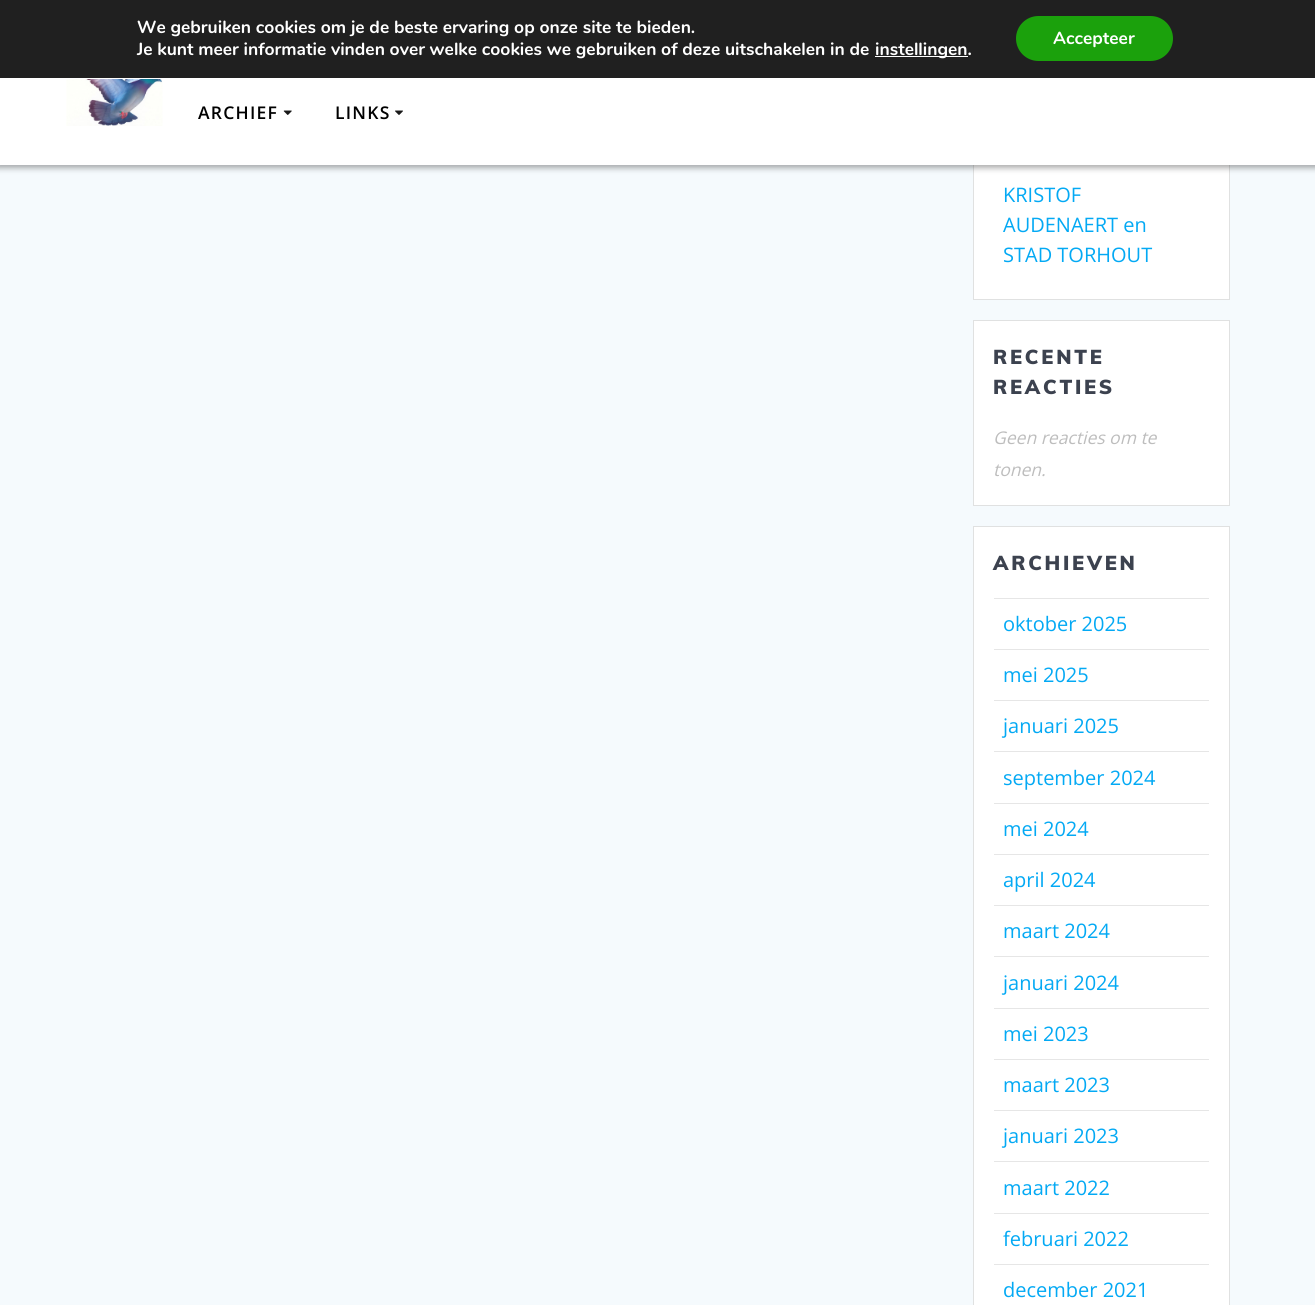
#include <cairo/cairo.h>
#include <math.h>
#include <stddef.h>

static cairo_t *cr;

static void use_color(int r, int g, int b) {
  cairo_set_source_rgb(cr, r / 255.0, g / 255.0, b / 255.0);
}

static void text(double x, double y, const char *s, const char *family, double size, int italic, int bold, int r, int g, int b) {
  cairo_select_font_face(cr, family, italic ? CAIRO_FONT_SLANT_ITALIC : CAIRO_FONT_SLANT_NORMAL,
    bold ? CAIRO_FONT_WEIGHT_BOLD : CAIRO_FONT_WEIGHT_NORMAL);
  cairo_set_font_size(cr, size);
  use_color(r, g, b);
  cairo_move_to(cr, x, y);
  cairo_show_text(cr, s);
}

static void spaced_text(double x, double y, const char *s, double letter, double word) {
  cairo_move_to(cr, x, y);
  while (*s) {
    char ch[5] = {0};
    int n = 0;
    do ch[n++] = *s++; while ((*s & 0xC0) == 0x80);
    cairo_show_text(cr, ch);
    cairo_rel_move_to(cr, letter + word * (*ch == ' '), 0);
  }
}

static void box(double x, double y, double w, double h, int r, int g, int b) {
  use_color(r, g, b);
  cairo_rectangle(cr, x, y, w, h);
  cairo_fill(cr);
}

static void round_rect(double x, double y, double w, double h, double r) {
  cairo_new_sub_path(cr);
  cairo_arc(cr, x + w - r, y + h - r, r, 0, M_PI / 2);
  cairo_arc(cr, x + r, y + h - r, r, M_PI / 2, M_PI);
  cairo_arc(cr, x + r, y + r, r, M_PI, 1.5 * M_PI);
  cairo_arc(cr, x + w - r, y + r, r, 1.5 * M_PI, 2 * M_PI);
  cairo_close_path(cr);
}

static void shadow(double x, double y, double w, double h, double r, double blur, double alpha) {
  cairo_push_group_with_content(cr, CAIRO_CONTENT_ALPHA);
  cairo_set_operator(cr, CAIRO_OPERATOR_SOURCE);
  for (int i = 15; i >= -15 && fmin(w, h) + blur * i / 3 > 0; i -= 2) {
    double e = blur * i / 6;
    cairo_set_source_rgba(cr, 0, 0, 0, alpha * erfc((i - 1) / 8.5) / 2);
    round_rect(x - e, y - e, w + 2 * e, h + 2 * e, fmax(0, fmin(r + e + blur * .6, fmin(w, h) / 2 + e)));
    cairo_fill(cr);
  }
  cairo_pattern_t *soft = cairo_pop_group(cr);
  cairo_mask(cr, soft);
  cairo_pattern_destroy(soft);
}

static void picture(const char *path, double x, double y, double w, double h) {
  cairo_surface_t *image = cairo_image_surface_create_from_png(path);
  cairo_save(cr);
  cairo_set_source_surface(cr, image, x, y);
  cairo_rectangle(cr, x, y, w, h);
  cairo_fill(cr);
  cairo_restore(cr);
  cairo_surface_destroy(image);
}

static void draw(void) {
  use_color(245, 250, 253);
  cairo_paint(cr);
  box(974, 165, 255, 134, 255, 255, 255);
  cairo_rectangle(cr, 973.5, -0.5, 256, 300);
  use_color(224, 225, 225);
  cairo_set_line_width(cr, 1);
  cairo_stroke(cr);
  use_color(0, 0, 0);
  shadow(-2, -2, 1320, 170, 0, 3, 0.33);
  box(0, 0, 1315, 78, 32, 32, 32);
  box(875, 56, 93, 1, 255, 255, 255);
  use_color(27, 161, 12);
  round_rect(1016, 16, 157, 45, 22.5);
  cairo_fill(cr);
  box(0, 78, 1315, 87, 255, 255, 255);
  picture("img_01.png", 66, 79, 97, 47);
  picture("img_02.png", 283, 110, 9, 5);
  picture("img_03.png", 395, 110, 8, 5);
  cairo_rectangle(cr, 973.5, 320.5, 256, 185);
  cairo_fill_preserve(cr);
  use_color(224, 225, 225);
  cairo_stroke(cr);
  use_color(255, 255, 255);
  cairo_rectangle(cr, 973.5, 526.5, 256, 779);
  cairo_fill_preserve(cr);
  use_color(224, 225, 225);
  cairo_stroke(cr);
  box(994, 598, 215, 1, 230, 230, 230);
  box(994, 649, 215, 1, 230, 230, 230);
  box(994, 700, 215, 1, 230, 230, 230);
  box(994, 751, 215, 1, 230, 230, 230);
  box(994, 803, 215, 1, 230, 230, 230);
  box(994, 854, 215, 1, 230, 230, 230);
  box(994, 905, 215, 1, 230, 230, 230);
  box(994, 956, 215, 1, 230, 230, 230);
  box(994, 1008, 215, 1, 230, 230, 230);
  box(994, 1059, 215, 1, 230, 230, 230);
  box(994, 1110, 215, 1, 230, 230, 230);
  box(994, 1161, 215, 1, 230, 230, 230);
  box(994, 1213, 215, 1, 230, 230, 230);
  box(994, 1264, 215, 1, 230, 230, 230);
  text(137, 33, "We gebruiken cookies om je de beste ervaring op onze site te bieden.", "Nunito", 17.5, 0, 1, 255, 255, 255);
  text(137, 55, "Je kunt meer informatie vinden over welke cookies we gebruiken of deze uitschakelen in de", "Nunito", 17.5, 0, 1, 255, 255, 255);
  text(875, 55, "instellingen.", "Nunito", 17.5, 0, 1, 255, 255, 255);
  text(1053, 44, "Accepteer", "Nunito", 17.5, 0, 1, 255, 255, 255);
  cairo_select_font_face(cr, "Open Sans SemiBold", CAIRO_FONT_SLANT_NORMAL, CAIRO_FONT_WEIGHT_NORMAL);
  use_color(0, 0, 0);
  spaced_text(198, 119, "ARCHIEF", 1.25, 0);
  spaced_text(335, 119, "LINKS", 1.25, 0);
  text(1003, 202, "KRISTOF", "Open Sans", 20, 0, 0, 3, 169, 244);
  text(1003, 232, "AUDENAERT en", "Open Sans", 20, 0, 0, 3, 169, 244);
  text(1003, 262, "STAD TORHOUT", "Open Sans", 20, 0, 0, 3, 169, 244);
  cairo_select_font_face(cr, "Muli Black", CAIRO_FONT_SLANT_NORMAL, CAIRO_FONT_WEIGHT_NORMAL);
  use_color(60, 66, 79);
  spaced_text(993, 364, "RECENTE", 2.75, 0);
  spaced_text(993, 394, "REACTIES", 2.75, 0);
  text(993, 444, "Geen reacties om te", "Open Sans", 17.5, 1, 0, 189, 189, 189);
  text(993, 476, "tonen.", "Open Sans", 17.5, 1, 0, 189, 189, 189);
  cairo_select_font_face(cr, "Muli Black", CAIRO_FONT_SLANT_NORMAL, CAIRO_FONT_WEIGHT_NORMAL);
  cairo_set_font_size(cr, 20);
  use_color(60, 66, 79);
  spaced_text(993, 570, "ARCHIEVEN", 2.75, 0);
  text(1003, 631, "oktober 2025", "Open Sans", 20, 0, 0, 3, 169, 244);
  text(1003, 682, "mei 2025", "Open Sans", 20, 0, 0, 3, 169, 244);
  text(1003, 733, "januari 2025", "Open Sans", 20, 0, 0, 3, 169, 244);
  text(1003, 785, "september 2024", "Open Sans", 20, 0, 0, 3, 169, 244);
  text(1003, 836, "mei 2024", "Open Sans", 20, 0, 0, 3, 169, 244);
  text(1003, 887, "april 2024", "Open Sans", 20, 0, 0, 3, 169, 244);
  text(1003, 938, "maart 2024", "Open Sans", 20, 0, 0, 3, 169, 244);
  text(1003, 990, "januari 2024", "Open Sans", 20, 0, 0, 3, 169, 244);
  text(1003, 1041, "mei 2023", "Open Sans", 20, 0, 0, 3, 169, 244);
  text(1003, 1092, "maart 2023", "Open Sans", 20, 0, 0, 3, 169, 244);
  text(1003, 1143, "januari 2023", "Open Sans", 20, 0, 0, 3, 169, 244);
  text(1003, 1195, "maart 2022", "Open Sans", 20, 0, 0, 3, 169, 244);
  text(1003, 1246, "februari 2022", "Open Sans", 20, 0, 0, 3, 169, 244);
  text(1003, 1297, "december 2021", "Open Sans", 20, 0, 0, 3, 169, 244);
}

int main(void) {
  cairo_surface_t *surface = cairo_image_surface_create(CAIRO_FORMAT_RGB24, 1315, 1305);
  cr = cairo_create(surface);
  cairo_font_options_t *options = cairo_font_options_create();
  cairo_font_options_set_hint_metrics(options, CAIRO_HINT_METRICS_OFF);
  cairo_font_options_set_hint_style(options, CAIRO_HINT_STYLE_NONE);
  cairo_set_font_options(cr, options);
  cairo_set_miter_limit(cr, 4);
  draw();
  cairo_surface_write_to_png(surface, "out.png");
  cairo_font_options_destroy(options);
  cairo_destroy(cr);
  cairo_surface_destroy(surface);
  return 0;
}
